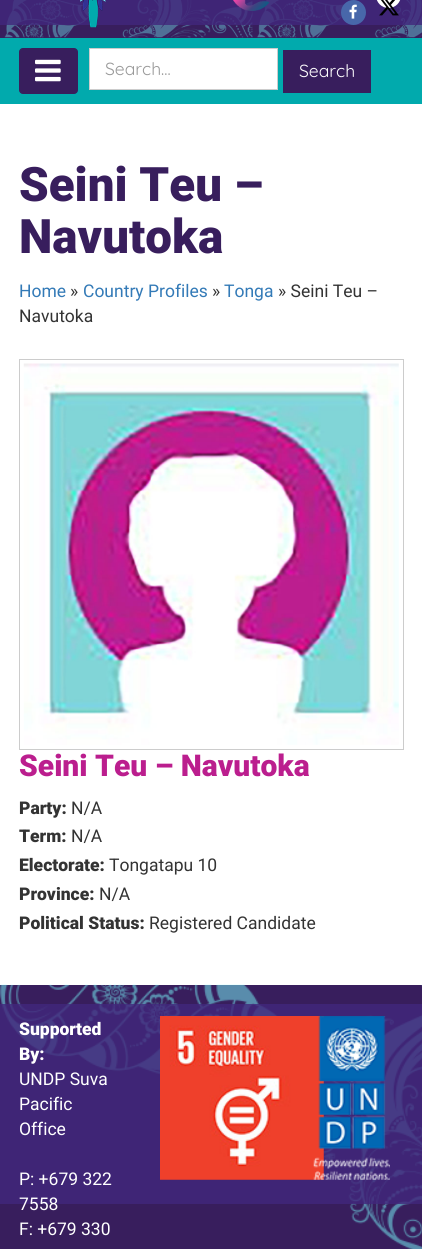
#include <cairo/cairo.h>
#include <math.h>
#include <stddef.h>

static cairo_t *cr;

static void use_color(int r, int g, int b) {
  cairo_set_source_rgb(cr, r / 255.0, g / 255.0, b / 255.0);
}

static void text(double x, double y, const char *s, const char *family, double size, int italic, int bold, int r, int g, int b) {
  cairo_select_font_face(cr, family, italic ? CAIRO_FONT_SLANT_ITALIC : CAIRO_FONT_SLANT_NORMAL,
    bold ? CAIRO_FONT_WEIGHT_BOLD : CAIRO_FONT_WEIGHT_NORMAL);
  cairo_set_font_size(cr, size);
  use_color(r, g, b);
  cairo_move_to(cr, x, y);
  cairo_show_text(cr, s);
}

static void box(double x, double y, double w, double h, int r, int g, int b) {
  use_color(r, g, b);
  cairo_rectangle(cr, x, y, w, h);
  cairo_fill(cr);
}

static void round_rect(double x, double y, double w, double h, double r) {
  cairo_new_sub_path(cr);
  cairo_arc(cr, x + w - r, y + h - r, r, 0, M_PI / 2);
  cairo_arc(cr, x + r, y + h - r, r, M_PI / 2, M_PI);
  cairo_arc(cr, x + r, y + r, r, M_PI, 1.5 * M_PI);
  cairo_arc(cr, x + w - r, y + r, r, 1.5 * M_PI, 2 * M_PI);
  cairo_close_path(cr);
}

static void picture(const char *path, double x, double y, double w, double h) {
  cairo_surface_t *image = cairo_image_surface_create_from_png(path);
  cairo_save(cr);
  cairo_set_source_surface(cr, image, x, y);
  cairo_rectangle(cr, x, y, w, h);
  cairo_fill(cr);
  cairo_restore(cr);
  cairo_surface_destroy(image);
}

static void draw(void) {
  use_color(56, 30, 93);
  cairo_paint(cr);
  picture("img_01.png", 4, 0, 418, 38);
  cairo_set_source_rgba(cr, 0.255, 0.153, 0.486, 0.8);
  cairo_rectangle(cr, 0, 0, 422, 25);
  cairo_fill(cr);
  picture("img_02.png", 79, 0, 27, 28);
  picture("img_03.png", 233, 0, 37, 11);
  use_color(72, 103, 170);
  cairo_arc(cr, 353.5, 12.5, 12.5, 0, 2 * M_PI);
  cairo_fill(cr);
  picture("img_04.png", 349, 4, 8, 15);
  use_color(255, 255, 255);
  round_rect(376, -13, 25, 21, 12.5);
  cairo_fill(cr);
  picture("img_05.png", 379, 0, 20, 16);
  box(0, 38, 422, 66, 1, 170, 173);
  use_color(56, 30, 93);
  round_rect(19.5, 48.5, 58, 45, 3.5);
  cairo_fill_preserve(cr);
  cairo_set_line_width(cr, 1);
  cairo_stroke(cr);
  picture("img_06.png", 35, 59, 26, 23);
  use_color(255, 255, 255);
  cairo_rectangle(cr, 89.5, 48.5, 188, 41);
  cairo_fill_preserve(cr);
  use_color(204, 204, 204);
  cairo_stroke(cr);
  box(283, 50, 88, 43, 56, 30, 93);
  box(0, 104, 422, 881, 255, 255, 255);
  cairo_rectangle(cr, 19.5, 359.5, 384, 390);
  use_color(204, 204, 204);
  cairo_stroke(cr);
  picture("img_07.png", 23, 363, 376, 382);
  picture("img_08.png", 0, 984, 422, 265);
  cairo_set_source_rgba(cr, 0.255, 0.153, 0.486, 0.8);
  cairo_rectangle(cr, 0, 1004, 422, 200);
  cairo_fill(cr);
  picture("img_09.png", 160, 1016, 164, 164);
  picture("img_10.png", 313, 1016, 77, 164);
  text(105, 75, "Search...", "Quicksand Light", 17.5, 0, 0, 153, 153, 153);
  text(299, 77, "Search", "Quicksand Light", 17.5, 0, 0, 255, 255, 255);
  text(19, 201, "Seini Teu –", "Roboto Black", 47.5, 0, 0, 56, 30, 93);
  text(19, 253, "Navutoka", "Roboto Black", 47.5, 0, 0, 56, 30, 93);
  text(19, 297, "Home", "Roboto", 17.5, 0, 0, 51, 122, 183);
  text(70, 297, "»", "Roboto", 17.5, 0, 0, 51, 51, 51);
  text(83, 297, "Country Profiles", "Roboto", 17.5, 0, 0, 51, 122, 183);
  text(212, 297, "»", "Roboto", 17.5, 0, 0, 51, 51, 51);
  text(224, 297, "Tonga", "Roboto", 17.5, 0, 0, 51, 122, 183);
  text(278, 297, "» Seini Teu –", "Roboto", 17.5, 0, 0, 51, 51, 51);
  text(19, 322, "Navutoka", "Roboto", 17.5, 0, 0, 51, 51, 51);
  text(19, 776, "Seini Teu – Navutoka", "Roboto Black", 30, 0, 0, 187, 30, 142);
  text(19, 814, "Party:", "Roboto Black", 17.5, 0, 0, 51, 51, 51);
  text(71, 814, "N/A", "Roboto", 17.5, 0, 0, 51, 51, 51);
  text(19, 842, "Term:", "Roboto Black", 17.5, 0, 0, 51, 51, 51);
  text(71, 842, "N/A", "Roboto", 17.5, 0, 0, 51, 51, 51);
  text(19, 871, "Electorate:", "Roboto Black", 17.5, 0, 0, 51, 51, 51);
  text(109, 871, "Tongatapu 10", "Roboto", 17.5, 0, 0, 51, 51, 51);
  text(19, 900, "Province:", "Roboto Black", 17.5, 0, 0, 51, 51, 51);
  text(99, 900, "N/A", "Roboto", 17.5, 0, 0, 51, 51, 51);
  text(19, 929, "Political Status:", "Roboto Black", 17.5, 0, 0, 51, 51, 51);
  text(149, 929, "Registered Candidate", "Roboto", 17.5, 0, 0, 51, 51, 51);
  text(19, 1035, "Supported", "Roboto Black", 17.5, 0, 0, 255, 255, 255);
  text(19, 1060, "By:", "Roboto Black", 17.5, 0, 0, 255, 255, 255);
  text(19, 1085, "UNDP Suva", "Roboto", 17.5, 0, 0, 255, 255, 255);
  text(19, 1110, "Pacific", "Roboto", 17.5, 0, 0, 255, 255, 255);
  text(19, 1135, "Office", "Roboto", 17.5, 0, 0, 255, 255, 255);
  text(19, 1185, "P: +679 322", "Roboto", 17.5, 0, 0, 255, 255, 255);
  text(19, 1210, "7558", "Roboto", 17.5, 0, 0, 255, 255, 255);
  text(19, 1235, "F: +679 330", "Roboto", 17.5, 0, 0, 255, 255, 255);
}

int main(void) {
  cairo_surface_t *surface = cairo_image_surface_create(CAIRO_FORMAT_RGB24, 422, 1249);
  cr = cairo_create(surface);
  cairo_font_options_t *options = cairo_font_options_create();
  cairo_font_options_set_hint_metrics(options, CAIRO_HINT_METRICS_OFF);
  cairo_font_options_set_hint_style(options, CAIRO_HINT_STYLE_NONE);
  cairo_set_font_options(cr, options);
  cairo_set_miter_limit(cr, 4);
  draw();
  cairo_surface_write_to_png(surface, "out.png");
  cairo_font_options_destroy(options);
  cairo_destroy(cr);
  cairo_surface_destroy(surface);
  return 0;
}
